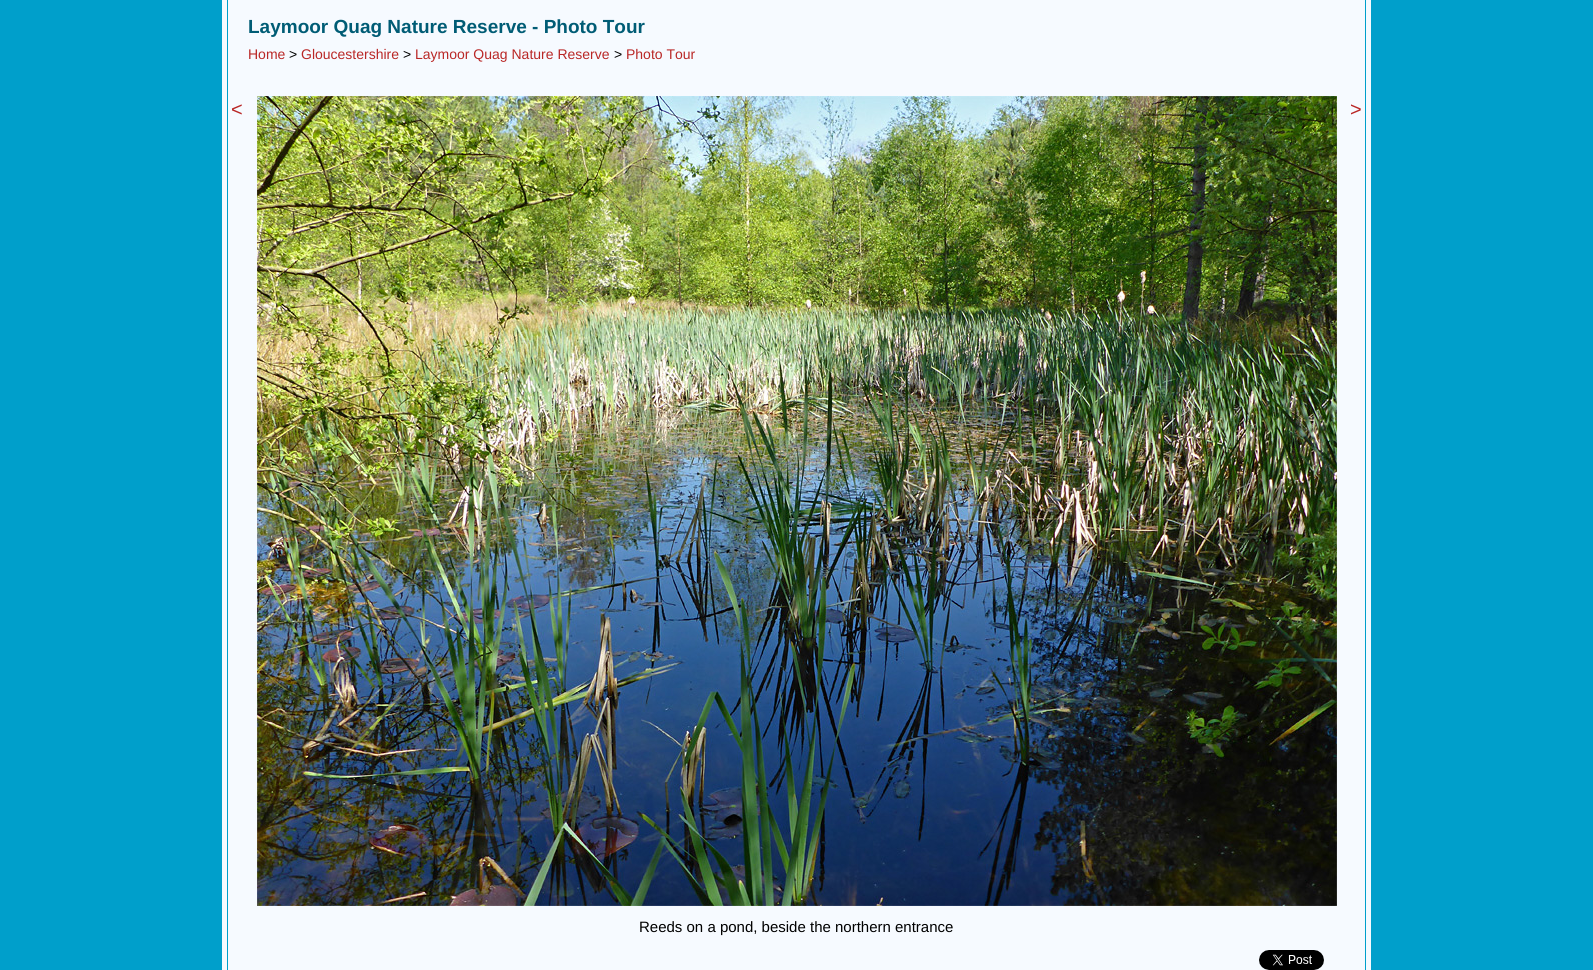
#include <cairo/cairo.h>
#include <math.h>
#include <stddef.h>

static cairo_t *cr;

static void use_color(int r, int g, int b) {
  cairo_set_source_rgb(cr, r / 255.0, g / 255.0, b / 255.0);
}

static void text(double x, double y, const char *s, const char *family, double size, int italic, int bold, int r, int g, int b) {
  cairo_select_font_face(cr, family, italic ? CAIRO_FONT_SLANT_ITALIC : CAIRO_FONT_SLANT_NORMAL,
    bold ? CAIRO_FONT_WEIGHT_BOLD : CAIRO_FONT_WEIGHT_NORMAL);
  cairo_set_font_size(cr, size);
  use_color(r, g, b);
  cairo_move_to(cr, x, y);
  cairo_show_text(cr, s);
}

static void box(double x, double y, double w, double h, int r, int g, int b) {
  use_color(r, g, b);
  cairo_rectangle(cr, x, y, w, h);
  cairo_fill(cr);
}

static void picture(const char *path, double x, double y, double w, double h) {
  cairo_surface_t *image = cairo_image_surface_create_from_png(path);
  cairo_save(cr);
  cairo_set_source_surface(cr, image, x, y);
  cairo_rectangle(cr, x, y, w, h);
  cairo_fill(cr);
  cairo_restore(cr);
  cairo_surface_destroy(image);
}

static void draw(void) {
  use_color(0, 159, 203);
  cairo_paint(cr);
  box(222, 0, 1149, 970, 246, 250, 255);
  box(1365, 0, 1, 970, 0, 159, 203);
  box(227, 0, 1, 970, 0, 159, 203);
  picture("img_01.png", 257, 96, 1080, 810);
  picture("img_02.png", 1259, 950, 65, 20);
  text(248, 33, "Laymoor Quag Nature Reserve - Photo Tour", "Liberation Sans", 19, 0, 1, 0, 92, 117);
  text(248, 59, "Home", "Liberation Sans", 14, 0, 0, 185, 39, 38);
  text(289, 59, ">", "Liberation Sans", 14, 0, 0, 0, 0, 0);
  text(301, 59, "Gloucestershire", "Liberation Sans", 14, 0, 0, 185, 39, 38);
  text(403, 59, ">", "Liberation Sans", 14, 0, 0, 0, 0, 0);
  text(415, 59, "Laymoor Quag Nature Reserve", "Liberation Sans", 14, 0, 0, 185, 39, 38);
  text(614, 59, ">", "Liberation Sans", 14, 0, 0, 0, 0, 0);
  text(626, 59, "Photo Tour", "Liberation Sans", 14, 0, 0, 185, 39, 38);
  text(231, 116, "<", "Liberation Sans", 20, 0, 0, 185, 39, 38);
  text(1350, 116, ">", "Liberation Sans", 20, 0, 0, 185, 39, 38);
  text(639, 932, "Reeds on a pond, beside the northern entrance", "Liberation Sans", 15, 0, 0, 0, 0, 0);
}

int main(void) {
  cairo_surface_t *surface = cairo_image_surface_create(CAIRO_FORMAT_RGB24, 1593, 970);
  cr = cairo_create(surface);
  cairo_font_options_t *options = cairo_font_options_create();
  cairo_font_options_set_hint_metrics(options, CAIRO_HINT_METRICS_OFF);
  cairo_font_options_set_hint_style(options, CAIRO_HINT_STYLE_NONE);
  cairo_set_font_options(cr, options);
  cairo_set_miter_limit(cr, 4);
  draw();
  cairo_surface_write_to_png(surface, "out.png");
  cairo_font_options_destroy(options);
  cairo_destroy(cr);
  cairo_surface_destroy(surface);
  return 0;
}
